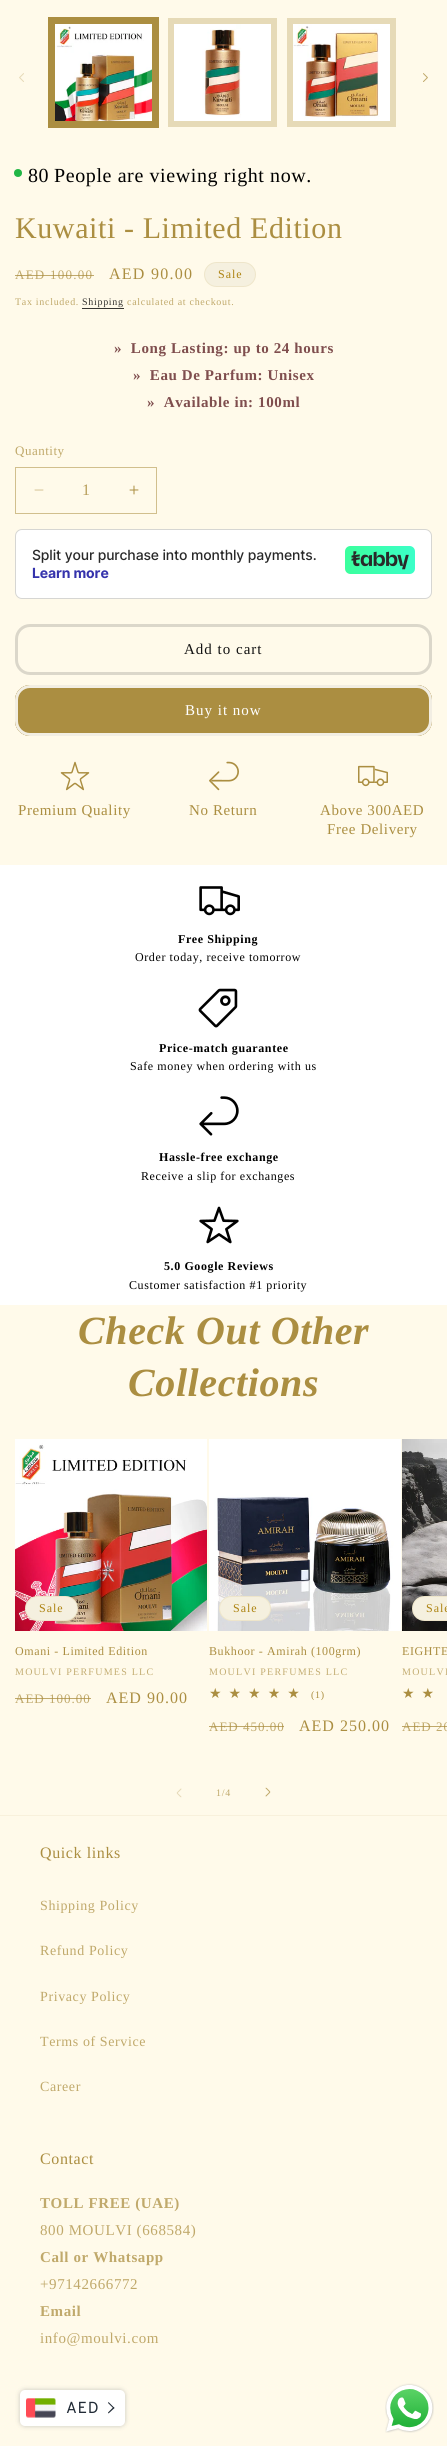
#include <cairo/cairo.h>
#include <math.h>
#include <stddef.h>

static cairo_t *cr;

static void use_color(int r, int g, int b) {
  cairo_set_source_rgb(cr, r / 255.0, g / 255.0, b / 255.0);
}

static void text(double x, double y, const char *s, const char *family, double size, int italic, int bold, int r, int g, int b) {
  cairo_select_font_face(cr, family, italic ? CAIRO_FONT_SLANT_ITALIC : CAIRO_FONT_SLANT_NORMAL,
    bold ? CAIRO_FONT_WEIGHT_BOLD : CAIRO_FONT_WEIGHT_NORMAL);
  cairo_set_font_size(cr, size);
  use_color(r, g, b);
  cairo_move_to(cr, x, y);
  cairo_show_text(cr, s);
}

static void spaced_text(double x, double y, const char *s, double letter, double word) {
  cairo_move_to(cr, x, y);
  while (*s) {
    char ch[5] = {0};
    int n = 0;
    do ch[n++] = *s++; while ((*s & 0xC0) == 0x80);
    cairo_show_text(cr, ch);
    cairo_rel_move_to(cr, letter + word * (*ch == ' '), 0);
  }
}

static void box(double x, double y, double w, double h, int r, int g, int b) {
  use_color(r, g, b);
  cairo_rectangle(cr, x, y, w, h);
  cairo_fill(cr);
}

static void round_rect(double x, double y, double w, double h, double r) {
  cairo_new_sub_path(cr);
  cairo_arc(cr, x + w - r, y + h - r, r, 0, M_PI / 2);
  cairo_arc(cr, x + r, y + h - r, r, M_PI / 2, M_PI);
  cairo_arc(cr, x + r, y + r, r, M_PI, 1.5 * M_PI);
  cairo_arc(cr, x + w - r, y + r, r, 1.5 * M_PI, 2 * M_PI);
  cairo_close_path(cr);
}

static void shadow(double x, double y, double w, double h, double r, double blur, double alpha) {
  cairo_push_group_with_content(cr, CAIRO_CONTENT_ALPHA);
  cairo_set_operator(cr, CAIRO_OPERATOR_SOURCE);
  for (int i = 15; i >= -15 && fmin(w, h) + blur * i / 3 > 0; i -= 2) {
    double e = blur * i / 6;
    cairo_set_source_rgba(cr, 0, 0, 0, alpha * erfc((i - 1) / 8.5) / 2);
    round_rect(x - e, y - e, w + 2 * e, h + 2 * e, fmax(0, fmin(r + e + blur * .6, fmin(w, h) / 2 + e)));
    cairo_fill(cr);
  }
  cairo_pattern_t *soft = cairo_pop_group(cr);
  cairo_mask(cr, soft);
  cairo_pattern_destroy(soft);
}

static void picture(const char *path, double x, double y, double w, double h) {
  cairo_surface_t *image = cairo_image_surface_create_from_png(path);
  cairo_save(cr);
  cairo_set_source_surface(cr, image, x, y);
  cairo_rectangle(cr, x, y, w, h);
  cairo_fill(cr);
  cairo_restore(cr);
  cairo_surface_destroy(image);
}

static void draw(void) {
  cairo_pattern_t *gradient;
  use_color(255, 250, 234);
  cairo_paint(cr);
  picture("img_01.png", 19, 73, 5, 9);
  cairo_rectangle(cr, 48.5, 17.5, 110, 110);
  use_color(171, 142, 65);
  cairo_set_line_width(cr, 1);
  cairo_stroke(cr);
  cairo_rectangle(cr, 52, 21, 103, 103);
  cairo_set_line_width(cr, 6);
  cairo_stroke(cr);
  picture("img_02.png", 55, 24, 97, 97);
  cairo_rectangle(cr, 171, 21, 103, 103);
  use_color(230, 218, 183);
  cairo_stroke(cr);
  picture("img_03.png", 174, 24, 97, 97);
  cairo_rectangle(cr, 290, 21, 103, 103);
  cairo_stroke(cr);
  picture("img_04.png", 293, 24, 97, 97);
  picture("img_05.png", 423, 73, 5, 9);
  use_color(33, 182, 70);
  cairo_arc(cr, 18, 173, 4, 0, 2 * M_PI);
  cairo_fill(cr);
  use_color(245, 240, 223);
  round_rect(204, 262, 52, 25, 12.5);
  cairo_fill(cr);
  round_rect(204.5, 262.5, 51, 24, 12);
  cairo_set_source_rgba(cr, 0.678, 0.514, 0.067, 0.1);
  cairo_set_line_width(cr, 1);
  cairo_stroke(cr);
  box(82, 308, 42, 1, 54, 53, 50);
  picture("img_06.png", 34, 489, 10, 2);
  picture("img_07.png", 129, 485, 10, 10);
  cairo_rectangle(cr, 15.5, 467.5, 141, 46);
  use_color(209, 191, 141);
  cairo_stroke(cr);
  use_color(255, 255, 255);
  round_rect(15.5, 529.5, 416, 69, 6.5);
  cairo_fill_preserve(cr);
  use_color(214, 214, 211);
  cairo_stroke(cr);
  picture("img_08.png", 345, 546, 70, 28);
  round_rect(16.5, 625.5, 414, 48, 13.5);
  use_color(219, 215, 202);
  cairo_set_line_width(cr, 3);
  cairo_stroke(cr);
  use_color(171, 142, 65);
  round_rect(15, 685, 417, 51, 15);
  cairo_fill(cr);
  round_rect(16.5, 686.5, 414, 48, 13.5);
  cairo_stroke(cr);
  round_rect(16.5, 686.5, 414, 48, 13.5);
  cairo_set_source_rgba(cr, 1, 1, 1, 0.85);
  cairo_stroke(cr);
  picture("img_09.png", 60, 761, 30, 30);
  picture("img_10.png", 209, 761, 30, 30);
  picture("img_11.png", 358, 765, 30, 22);
  box(0, 865, 447, 440, 255, 255, 255);
  picture("img_12.png", 199, 886, 41, 30);
  picture("img_13.png", 198, 988, 40, 40);
  picture("img_14.png", 199, 1096, 40, 40);
  picture("img_15.png", 199, 1206, 40, 38);
  picture("img_16.png", 15, 1439, 192, 192);
  use_color(245, 240, 223);
  round_rect(25, 1596, 53, 25, 12.5);
  cairo_fill(cr);
  round_rect(25.5, 1596.5, 52, 24, 12);
  cairo_set_source_rgba(cr, 0.678, 0.514, 0.067, 0.1);
  cairo_set_line_width(cr, 1);
  cairo_stroke(cr);
  picture("img_17.png", 209, 1439, 192, 192);
  use_color(245, 240, 223);
  round_rect(219, 1596, 52, 25, 12.5);
  cairo_fill(cr);
  round_rect(219.5, 1596.5, 51, 24, 12);
  cairo_set_source_rgba(cr, 0.678, 0.514, 0.067, 0.1);
  cairo_stroke(cr);
  picture("img_18.png", 402, 1439, 45, 192);
  use_color(245, 240, 223);
  cairo_new_path(cr);
  cairo_move_to(cr, 424.5, 1596);
  cairo_line_to(cr, 447, 1596);
  cairo_line_to(cr, 447, 1621);
  cairo_line_to(cr, 424.5, 1621);
  cairo_curve_to(cr, 417.5, 1621, 412, 1615.5, 412, 1608.5);
  cairo_curve_to(cr, 412, 1601.5, 417.5, 1596, 424.5, 1596);
  cairo_close_path(cr);
  cairo_fill(cr);
  round_rect(412.5, 1596.5, 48, 24, 12);
  cairo_set_source_rgba(cr, 0.678, 0.514, 0.067, 0.1);
  cairo_stroke(cr);
  picture("img_19.png", 176, 1788, 6, 10);
  picture("img_20.png", 265, 1787, 6, 10);
  box(0, 1815, 447, 1, 248, 241, 220);
  use_color(33, 43, 54);
  shadow(20, 2390, 105, 36, 5, 2.5, 0.25);
  use_color(255, 255, 255);
  round_rect(20, 2390, 105, 36, 5);
  cairo_fill(cr);
  picture("img_21.png", 26, 2398, 30, 20);
  use_color(33, 43, 54);
  cairo_new_path(cr);
  cairo_move_to(cr, 108, 2403);
  cairo_line_to(cr, 108.5, 2402);
  cairo_line_to(cr, 114.5, 2408);
  cairo_line_to(cr, 113.5, 2408.5);
  cairo_close_path(cr);
  cairo_fill(cr);
  cairo_new_path(cr);
  cairo_move_to(cr, 108, 2412.5);
  cairo_line_to(cr, 113.5, 2407);
  cairo_line_to(cr, 114.5, 2408);
  cairo_line_to(cr, 108.5, 2413.5);
  cairo_close_path(cr);
  cairo_fill(cr);
  picture("img_22.png", 385, 2383, 49, 50);
  cairo_select_font_face(cr, "Liberation Serif", CAIRO_FONT_SLANT_NORMAL, CAIRO_FONT_WEIGHT_NORMAL);
  cairo_set_font_size(cr, 20);
  use_color(0, 0, 0);
  spaced_text(28, 182, "80", 0.6, 0);
  spaced_text(54, 182, "People are viewing right now.", 0.6, 0);
  cairo_set_font_size(cr, 30);
  use_color(171, 142, 65);
  spaced_text(15, 238, "Kuwaiti - Limited Edition", 0.6, 0);
  cairo_set_font_size(cr, 13);
  use_color(192, 169, 107);
  spaced_text(15, 279, "AED 100.00", 1.25, 0);
  cairo_set_source_rgba(cr, 0.671, 0.557, 0.255, 0.75);
  cairo_rectangle(cr, 15, 275, 79, 1);
  cairo_fill(cr);
  cairo_set_font_size(cr, 16);
  use_color(171, 142, 65);
  spaced_text(109, 279, "AED 90.00", 1.25, 0);
  cairo_set_font_size(cr, 12);
  use_color(173, 131, 17);
  spaced_text(218, 278, "Sale", 1, 0);
  cairo_set_font_size(cr, 10);
  use_color(192, 169, 107);
  spaced_text(15, 305, "Tax included.", 0.7, 0);
  use_color(54, 53, 50);
  spaced_text(82, 305, "Shipping", 0.7, 0);
  use_color(192, 169, 107);
  spaced_text(127, 305, "calculated at checkout.", 0.7, 0);
  cairo_select_font_face(cr, "Liberation Serif", CAIRO_FONT_SLANT_NORMAL, CAIRO_FONT_WEIGHT_BOLD);
  cairo_set_font_size(cr, 15);
  use_color(127, 78, 78);
  spaced_text(114, 353, "»  Long Lasting: up to 24 hours", 0.6, 0);
  spaced_text(133, 380, "»  Eau De Parfum: Unisex", 0.6, 0);
  spaced_text(147, 407, "»  Available in: 100ml", 0.6, 0);
  cairo_select_font_face(cr, "Liberation Serif", CAIRO_FONT_SLANT_NORMAL, CAIRO_FONT_WEIGHT_NORMAL);
  cairo_set_font_size(cr, 13);
  use_color(192, 169, 107);
  spaced_text(15, 455, "Quantity", 0.5, 0);
  text(82, 495, "1", "Liberation Serif", 16, 0, 0, 184, 158, 90);
  cairo_select_font_face(cr, "Inter Medium", CAIRO_FONT_SLANT_NORMAL, CAIRO_FONT_WEIGHT_NORMAL);
  cairo_set_font_size(cr, 14);
  use_color(41, 41, 41);
  spaced_text(32, 560, "Split your purchase into monthly payments.", -0.15, 0);
  cairo_select_font_face(cr, "Inter", CAIRO_FONT_SLANT_NORMAL, CAIRO_FONT_WEIGHT_BOLD);
  use_color(53, 51, 172);
  spaced_text(32, 578, "Learn more", -0.15, 0);
  cairo_select_font_face(cr, "Liberation Serif", CAIRO_FONT_SLANT_NORMAL, CAIRO_FONT_WEIGHT_NORMAL);
  cairo_set_font_size(cr, 15);
  use_color(18, 18, 18);
  spaced_text(184, 654, "Add to cart", 1, 0);
  use_color(255, 255, 255);
  spaced_text(185, 715, "Buy it now", 1, 0);
  use_color(171, 142, 65);
  spaced_text(18, 815, "Premium Quality", 0.6, 0);
  spaced_text(189, 815, "No Return", 0.6, 0);
  spaced_text(320, 815, "Above 300AED", 0.6, 0);
  spaced_text(327, 834, "Free Delivery", 0.6, 0);
  cairo_select_font_face(cr, "Liberation Serif", CAIRO_FONT_SLANT_NORMAL, CAIRO_FONT_WEIGHT_BOLD);
  cairo_set_font_size(cr, 12);
  use_color(0, 0, 0);
  spaced_text(178, 943, "Free Shipping", 0.6, 0);
  cairo_select_font_face(cr, "Liberation Serif", CAIRO_FONT_SLANT_NORMAL, CAIRO_FONT_WEIGHT_NORMAL);
  spaced_text(135, 961, "Order today, receive tomorrow", 0.6, 0);
  cairo_select_font_face(cr, "Liberation Serif", CAIRO_FONT_SLANT_NORMAL, CAIRO_FONT_WEIGHT_BOLD);
  spaced_text(159, 1052, "Price-match guarantee", 0.6, 0);
  cairo_select_font_face(cr, "Liberation Serif", CAIRO_FONT_SLANT_NORMAL, CAIRO_FONT_WEIGHT_NORMAL);
  spaced_text(130, 1070, "Safe money when ordering with us", 0.6, 0);
  cairo_select_font_face(cr, "Liberation Serif", CAIRO_FONT_SLANT_NORMAL, CAIRO_FONT_WEIGHT_BOLD);
  spaced_text(159, 1161, "Hassle-free exchange", 0.6, 0);
  cairo_select_font_face(cr, "Liberation Serif", CAIRO_FONT_SLANT_NORMAL, CAIRO_FONT_WEIGHT_NORMAL);
  spaced_text(141, 1180, "Receive a slip for exchanges", 0.6, 0);
  cairo_select_font_face(cr, "Liberation Serif", CAIRO_FONT_SLANT_NORMAL, CAIRO_FONT_WEIGHT_BOLD);
  spaced_text(164, 1270, "5.0 Google Reviews", 0.6, 0);
  cairo_select_font_face(cr, "Liberation Serif", CAIRO_FONT_SLANT_NORMAL, CAIRO_FONT_WEIGHT_NORMAL);
  spaced_text(129, 1289, "Customer satisfaction #1 priority", 0.6, 0);
  cairo_select_font_face(cr, "Liberation Serif", CAIRO_FONT_SLANT_ITALIC, CAIRO_FONT_WEIGHT_BOLD);
  cairo_set_font_size(cr, 40);
  use_color(171, 142, 65);
  spaced_text(78, 1344, "Check Out Other", 0.6, 0);
  spaced_text(128, 1396, "Collections", 0.6, 0);
  cairo_select_font_face(cr, "Liberation Serif", CAIRO_FONT_SLANT_NORMAL, CAIRO_FONT_WEIGHT_NORMAL);
  cairo_set_font_size(cr, 12);
  use_color(173, 131, 17);
  spaced_text(39, 1612, "Sale", 1, 0);
  use_color(171, 142, 65);
  spaced_text(15, 1655, "Omani - Limited Edition", 0.6, 0);
  cairo_set_font_size(cr, 10);
  use_color(196, 174, 116);
  spaced_text(15, 1675, "MOULVI PERFUMES LLC", 1.25, 0);
  cairo_set_font_size(cr, 13);
  use_color(192, 169, 107);
  spaced_text(15, 1703, "AED 100.00", 1, 0);
  cairo_set_source_rgba(cr, 0.671, 0.557, 0.255, 0.75);
  cairo_rectangle(cr, 15, 1698, 76, 1);
  cairo_fill(cr);
  cairo_set_font_size(cr, 16);
  use_color(171, 142, 65);
  spaced_text(106, 1703, "AED 90.00", 1, 0);
  cairo_set_font_size(cr, 12);
  use_color(173, 131, 17);
  spaced_text(233, 1612, "Sale", 1, 0);
  use_color(171, 142, 65);
  spaced_text(209, 1655, "Bukhoor - Amirah (100grm)", 0.6, 0);
  cairo_set_font_size(cr, 10);
  use_color(196, 174, 116);
  spaced_text(209, 1675, "MOULVI PERFUMES LLC", 1.25, 0);
  cairo_select_font_face(cr, "DejaVu Sans", CAIRO_FONT_SLANT_NORMAL, CAIRO_FONT_WEIGHT_NORMAL);
  cairo_set_font_size(cr, 14);
  gradient = cairo_pattern_create_linear(209, 1693, 306, 1693);
  cairo_pattern_add_color_stop_rgba(gradient, 1, 0.671, 0.557, 0.255, 1);
  cairo_pattern_add_color_stop_rgba(gradient, 1, 0.949, 0.918, 0.82, 1);
  cairo_set_source(cr, gradient);
  cairo_pattern_destroy(gradient);
  spaced_text(209, 1698, "★★★★★", 7, 0);
  cairo_select_font_face(cr, "Liberation Serif", CAIRO_FONT_SLANT_NORMAL, CAIRO_FONT_WEIGHT_NORMAL);
  cairo_set_font_size(cr, 10);
  use_color(171, 142, 65);
  spaced_text(311, 1698, "(1)", 0.7, 0);
  cairo_set_font_size(cr, 13);
  use_color(192, 169, 107);
  spaced_text(209, 1731, "AED 450.00", 1, 0);
  cairo_set_source_rgba(cr, 0.671, 0.557, 0.255, 0.75);
  cairo_rectangle(cr, 209, 1726, 75, 1);
  cairo_fill(cr);
  cairo_set_font_size(cr, 16);
  use_color(171, 142, 65);
  spaced_text(299, 1731, "AED 250.00", 1, 0);
  cairo_set_font_size(cr, 12);
  use_color(173, 131, 17);
  spaced_text(426, 1612, "Sale", 1, 0);
  use_color(171, 142, 65);
  spaced_text(402, 1655, "EIGHTE", 0.6, 0);
  cairo_set_font_size(cr, 10);
  use_color(196, 174, 116);
  spaced_text(402, 1675, "MOULVI", 1.25, 0);
  cairo_select_font_face(cr, "DejaVu Sans", CAIRO_FONT_SLANT_NORMAL, CAIRO_FONT_WEIGHT_NORMAL);
  cairo_set_font_size(cr, 14);
  gradient = cairo_pattern_create_linear(402, 1693, 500, 1693);
  cairo_pattern_add_color_stop_rgba(gradient, 1, 0.671, 0.557, 0.255, 1);
  cairo_pattern_add_color_stop_rgba(gradient, 1, 0.949, 0.918, 0.82, 1);
  cairo_set_source(cr, gradient);
  cairo_pattern_destroy(gradient);
  spaced_text(402, 1698, "★★", 7, 0);
  cairo_select_font_face(cr, "Liberation Serif", CAIRO_FONT_SLANT_NORMAL, CAIRO_FONT_WEIGHT_NORMAL);
  cairo_set_font_size(cr, 13);
  use_color(192, 169, 107);
  spaced_text(402, 1731, "AED 20", 1, 0);
  cairo_set_source_rgba(cr, 0.671, 0.557, 0.255, 0.75);
  cairo_rectangle(cr, 402, 1726, 45, 1);
  cairo_fill(cr);
  cairo_set_font_size(cr, 10);
  use_color(192, 169, 107);
  spaced_text(216, 1796, "1/4", 0.7, 0);
  cairo_set_font_size(cr, 16);
  use_color(171, 142, 65);
  spaced_text(40, 1858, "Quick links", 0.6, 0);
  cairo_set_font_size(cr, 14);
  use_color(192, 169, 107);
  spaced_text(40, 1910, "Shipping Policy", 0.6, 0);
  spaced_text(40, 1955, "Refund Policy", 0.6, 0);
  spaced_text(40, 2001, "Privacy Policy", 0.6, 0);
  spaced_text(40, 2046, "Terms of Service", 0.6, 0);
  spaced_text(40, 2091, "Career", 0.6, 0);
  cairo_set_font_size(cr, 16);
  use_color(171, 142, 65);
  spaced_text(40, 2164, "Contact", 0.6, 0);
  cairo_select_font_face(cr, "Liberation Serif", CAIRO_FONT_SLANT_NORMAL, CAIRO_FONT_WEIGHT_BOLD);
  cairo_set_font_size(cr, 15);
  use_color(192, 169, 107);
  spaced_text(40, 2208, "TOLL FREE (UAE)", 0.6, 0);
  cairo_select_font_face(cr, "Liberation Serif", CAIRO_FONT_SLANT_NORMAL, CAIRO_FONT_WEIGHT_NORMAL);
  spaced_text(40, 2235, "800 MOULVI (668584)", 0.6, 0);
  cairo_select_font_face(cr, "Liberation Serif", CAIRO_FONT_SLANT_NORMAL, CAIRO_FONT_WEIGHT_BOLD);
  spaced_text(40, 2262, "Call or Whatsapp", 0.6, 0);
  cairo_select_font_face(cr, "Liberation Serif", CAIRO_FONT_SLANT_NORMAL, CAIRO_FONT_WEIGHT_NORMAL);
  spaced_text(40, 2289, "+97142666772", 0.6, 0);
  cairo_select_font_face(cr, "Liberation Serif", CAIRO_FONT_SLANT_NORMAL, CAIRO_FONT_WEIGHT_BOLD);
  spaced_text(40, 2316, "Email", 0.6, 0);
  cairo_select_font_face(cr, "Liberation Serif", CAIRO_FONT_SLANT_NORMAL, CAIRO_FONT_WEIGHT_NORMAL);
  spaced_text(40, 2343, "info@moulvi.com", 0.6, 0);
  cairo_select_font_face(cr, "Overpass", CAIRO_FONT_SLANT_NORMAL, CAIRO_FONT_WEIGHT_NORMAL);
  cairo_set_font_size(cr, 16);
  use_color(33, 43, 54);
  spaced_text(66, 2413, "AED", 0.6, 0);
}

int main(void) {
  cairo_surface_t *surface = cairo_image_surface_create(CAIRO_FORMAT_RGB24, 447, 2446);
  cr = cairo_create(surface);
  cairo_font_options_t *options = cairo_font_options_create();
  cairo_font_options_set_hint_metrics(options, CAIRO_HINT_METRICS_OFF);
  cairo_font_options_set_hint_style(options, CAIRO_HINT_STYLE_NONE);
  cairo_set_font_options(cr, options);
  cairo_set_miter_limit(cr, 4);
  draw();
  cairo_surface_write_to_png(surface, "out.png");
  cairo_font_options_destroy(options);
  cairo_destroy(cr);
  cairo_surface_destroy(surface);
  return 0;
}
